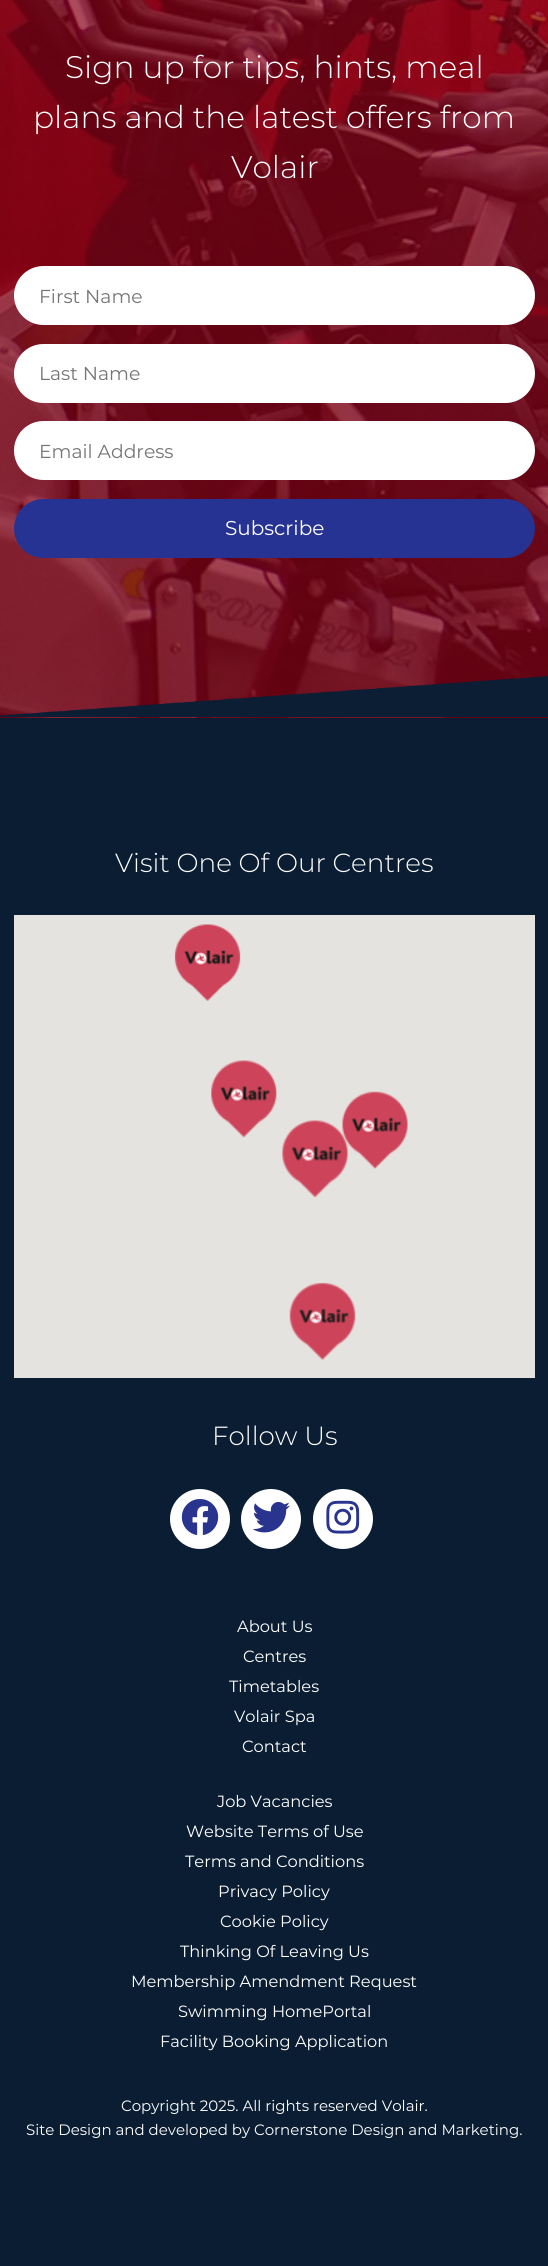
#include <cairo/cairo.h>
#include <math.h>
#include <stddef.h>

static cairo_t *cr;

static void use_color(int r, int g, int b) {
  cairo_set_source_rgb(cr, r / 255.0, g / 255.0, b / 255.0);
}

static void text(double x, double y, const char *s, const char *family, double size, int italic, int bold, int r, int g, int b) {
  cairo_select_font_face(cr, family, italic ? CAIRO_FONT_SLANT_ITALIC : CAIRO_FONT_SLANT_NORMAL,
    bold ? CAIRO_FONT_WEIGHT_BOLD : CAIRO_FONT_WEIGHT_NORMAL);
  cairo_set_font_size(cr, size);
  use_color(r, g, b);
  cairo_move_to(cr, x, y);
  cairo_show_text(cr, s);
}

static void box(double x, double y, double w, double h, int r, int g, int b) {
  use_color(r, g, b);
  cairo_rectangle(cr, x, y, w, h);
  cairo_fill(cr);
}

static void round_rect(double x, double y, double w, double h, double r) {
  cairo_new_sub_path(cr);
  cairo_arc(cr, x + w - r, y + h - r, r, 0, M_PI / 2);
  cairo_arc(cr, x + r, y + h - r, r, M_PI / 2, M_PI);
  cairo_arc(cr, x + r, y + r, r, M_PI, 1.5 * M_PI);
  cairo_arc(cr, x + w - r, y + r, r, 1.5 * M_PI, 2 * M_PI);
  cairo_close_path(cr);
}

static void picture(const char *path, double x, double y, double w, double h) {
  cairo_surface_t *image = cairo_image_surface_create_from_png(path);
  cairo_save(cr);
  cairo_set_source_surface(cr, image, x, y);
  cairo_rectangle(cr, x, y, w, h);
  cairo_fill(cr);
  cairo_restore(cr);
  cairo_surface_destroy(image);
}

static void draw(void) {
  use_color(255, 255, 255);
  cairo_paint(cr);
  picture("img_01.png", 0, 0, 548, 718);
  use_color(255, 255, 255);
  round_rect(14, 266, 521, 59, 29.5);
  cairo_fill(cr);
  round_rect(14, 344, 521, 59, 29.5);
  cairo_fill(cr);
  round_rect(14, 421, 521, 59, 29.5);
  cairo_fill(cr);
  use_color(39, 51, 147);
  round_rect(14, 499, 521, 59, 29.5);
  cairo_fill(cr);
  picture("img_02.png", 0, 675, 548, 42);
  box(0, 718, 548, 1548, 10, 29, 51);
  box(14, 915, 521, 463, 229, 227, 223);
  picture("img_03.png", 174, 924, 67, 77);
  picture("img_04.png", 211, 1060, 66, 78);
  picture("img_06.png", 342, 1091, 66, 78);
  picture("img_05.png", 282, 1120, 67, 78);
  picture("img_07.png", 289, 1282, 67, 79);
  use_color(255, 255, 255);
  cairo_arc(cr, 200, 1519, 30, 0, 2 * M_PI);
  cairo_fill(cr);
  picture("img_08.png", 181, 1499, 38, 36);
  cairo_arc(cr, 271, 1519, 30, 0, 2 * M_PI);
  cairo_fill(cr);
  picture("img_09.png", 252, 1502, 38, 31);
  cairo_arc(cr, 343, 1519, 30, 0, 2 * M_PI);
  cairo_fill(cr);
  picture("img_10.png", 326, 1500, 34, 34);
  text(65, 78, "Sign up for tips, hints, meal", "Montserrat Light", 31.25, 0, 0, 255, 255, 255);
  text(33, 128, "plans and the latest offers from", "Montserrat Light", 31.25, 0, 0, 255, 255, 255);
  text(231, 178, "Volair", "Montserrat Light", 31.25, 0, 0, 255, 255, 255);
  text(39, 303, "First Name", "Montserrat", 18.75, 0, 0, 117, 117, 117);
  text(39, 380, "Last Name", "Montserrat", 18.75, 0, 0, 117, 117, 117);
  text(39, 458, "Email Address", "Montserrat", 18.75, 0, 0, 117, 117, 117);
  text(225, 535, "Subscribe", "Montserrat", 20, 0, 0, 255, 255, 255);
  text(115, 872, "Visit One Of Our Centres", "Montserrat Light", 26.25, 0, 0, 255, 255, 255);
  text(212, 1445, "Follow Us", "Montserrat Light", 26.25, 0, 0, 255, 255, 255);
  text(237, 1632, "About Us", "Montserrat", 16.25, 0, 0, 255, 255, 255);
  text(243, 1662, "Centres", "Montserrat", 16.25, 0, 0, 255, 255, 255);
  text(229, 1692, "Timetables", "Montserrat", 16.25, 0, 0, 255, 255, 255);
  text(234, 1722, "Volair Spa", "Montserrat", 16.25, 0, 0, 255, 255, 255);
  text(242, 1752, "Contact", "Montserrat", 16.25, 0, 0, 255, 255, 255);
  text(217, 1807, "Job Vacancies", "Montserrat", 16.25, 0, 0, 255, 255, 255);
  text(186, 1837, "Website Terms of Use", "Montserrat", 16.25, 0, 0, 255, 255, 255);
  text(185, 1867, "Terms and Conditions", "Montserrat", 16.25, 0, 0, 255, 255, 255);
  text(218, 1897, "Privacy Policy", "Montserrat", 16.25, 0, 0, 255, 255, 255);
  text(220, 1927, "Cookie Policy", "Montserrat", 16.25, 0, 0, 255, 255, 255);
  text(180, 1957, "Thinking Of Leaving Us", "Montserrat", 16.25, 0, 0, 255, 255, 255);
  text(131, 1987, "Membership Amendment Request", "Montserrat", 16.25, 0, 0, 255, 255, 255);
  text(178, 2017, "Swimming HomePortal", "Montserrat", 16.25, 0, 0, 255, 255, 255);
  text(160, 2047, "Facility Booking Application", "Montserrat", 16.25, 0, 0, 255, 255, 255);
  text(121, 2111, "Copyright 2025. All rights reserved Volair.", "Montserrat", 15, 0, 0, 255, 255, 255);
  text(26, 2135, "Site Design and developed by Cornerstone Design and Marketing.", "Montserrat", 15, 0, 0, 255, 255, 255);
}

int main(void) {
  cairo_surface_t *surface = cairo_image_surface_create(CAIRO_FORMAT_RGB24, 548, 2266);
  cr = cairo_create(surface);
  cairo_font_options_t *options = cairo_font_options_create();
  cairo_font_options_set_hint_metrics(options, CAIRO_HINT_METRICS_OFF);
  cairo_font_options_set_hint_style(options, CAIRO_HINT_STYLE_NONE);
  cairo_set_font_options(cr, options);
  cairo_set_miter_limit(cr, 4);
  draw();
  cairo_surface_write_to_png(surface, "out.png");
  cairo_font_options_destroy(options);
  cairo_destroy(cr);
  cairo_surface_destroy(surface);
  return 0;
}
